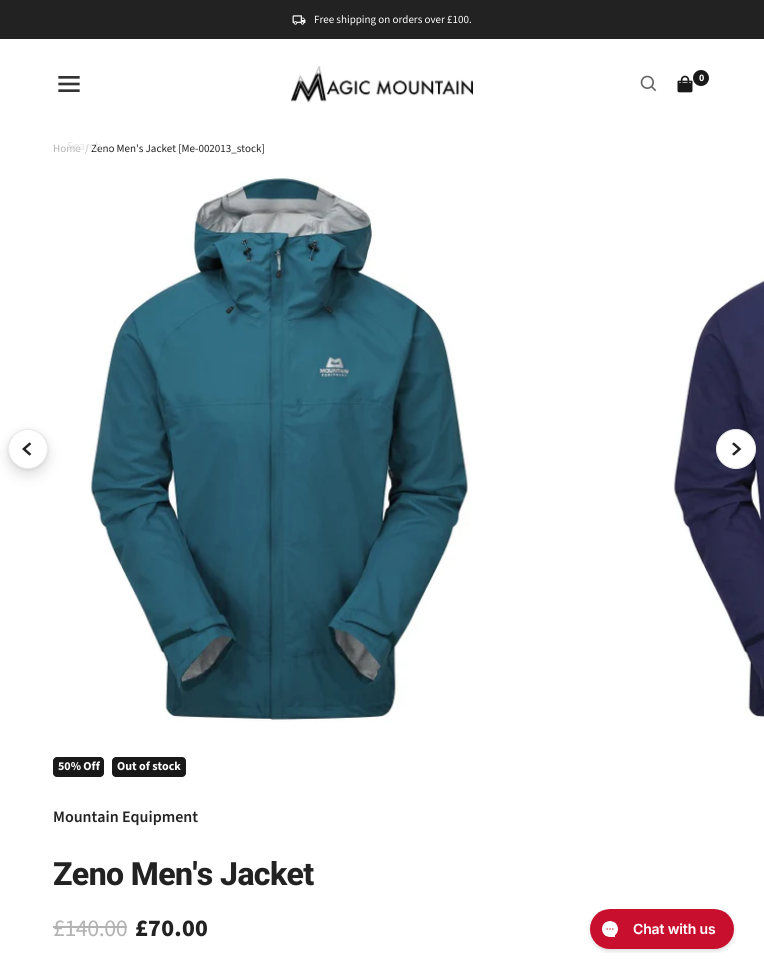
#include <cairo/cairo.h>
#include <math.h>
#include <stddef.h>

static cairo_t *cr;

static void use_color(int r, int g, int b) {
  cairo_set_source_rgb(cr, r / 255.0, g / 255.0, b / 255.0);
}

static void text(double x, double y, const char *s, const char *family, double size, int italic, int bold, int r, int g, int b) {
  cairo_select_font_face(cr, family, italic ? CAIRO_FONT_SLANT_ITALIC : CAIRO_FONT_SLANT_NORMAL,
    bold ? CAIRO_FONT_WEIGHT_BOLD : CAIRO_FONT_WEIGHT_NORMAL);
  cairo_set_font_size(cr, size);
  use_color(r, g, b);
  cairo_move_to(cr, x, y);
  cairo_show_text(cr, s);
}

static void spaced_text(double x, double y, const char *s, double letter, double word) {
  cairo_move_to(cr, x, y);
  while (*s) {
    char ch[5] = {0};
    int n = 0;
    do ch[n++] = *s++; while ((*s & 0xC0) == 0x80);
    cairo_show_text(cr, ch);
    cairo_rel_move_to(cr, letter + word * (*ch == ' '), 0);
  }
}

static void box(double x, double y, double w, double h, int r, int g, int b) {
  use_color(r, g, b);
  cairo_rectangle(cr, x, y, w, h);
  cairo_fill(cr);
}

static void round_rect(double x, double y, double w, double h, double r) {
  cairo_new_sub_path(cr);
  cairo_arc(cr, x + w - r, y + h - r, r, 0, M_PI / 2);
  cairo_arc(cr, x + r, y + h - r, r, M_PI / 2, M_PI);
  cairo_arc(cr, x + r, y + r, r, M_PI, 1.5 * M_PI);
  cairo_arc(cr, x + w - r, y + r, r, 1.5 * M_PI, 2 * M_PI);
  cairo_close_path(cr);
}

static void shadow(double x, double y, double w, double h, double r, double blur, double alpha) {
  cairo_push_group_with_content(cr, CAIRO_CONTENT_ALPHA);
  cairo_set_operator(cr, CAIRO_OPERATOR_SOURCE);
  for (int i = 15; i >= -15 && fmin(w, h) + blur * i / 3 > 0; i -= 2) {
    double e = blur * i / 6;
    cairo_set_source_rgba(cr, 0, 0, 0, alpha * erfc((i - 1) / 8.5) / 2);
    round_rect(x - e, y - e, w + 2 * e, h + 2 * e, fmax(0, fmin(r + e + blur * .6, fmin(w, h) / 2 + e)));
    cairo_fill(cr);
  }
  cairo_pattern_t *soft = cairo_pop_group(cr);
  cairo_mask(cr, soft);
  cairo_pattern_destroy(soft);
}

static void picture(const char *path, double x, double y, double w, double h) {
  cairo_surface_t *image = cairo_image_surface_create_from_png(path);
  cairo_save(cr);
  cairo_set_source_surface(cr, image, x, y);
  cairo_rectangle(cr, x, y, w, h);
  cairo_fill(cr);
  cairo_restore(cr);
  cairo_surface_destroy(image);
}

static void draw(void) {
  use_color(255, 255, 255);
  cairo_paint(cr);
  box(0, 0, 764, 39, 34, 34, 34);
  picture("img_01.png", 292, 15, 14, 10);
  picture("img_02.png", 291, 66, 182, 37);
  picture("img_03.png", 640, 75, 17, 17);
  picture("img_04.png", 677, 75, 16, 18);
  use_color(25, 25, 25);
  cairo_arc(cr, 701, 78, 8, 0, 2 * M_PI);
  cairo_fill(cr);
  picture("img_05.png", 58, 76, 22, 16);
  picture("img_06.png", 89, 177, 381, 545);
  picture("img_07.png", 673, 276, 91, 442);
  use_color(0, 0, 0);
  shadow(8, 435, 40, 40, 20, 7, 0.12);
  shadow(8, 430, 40, 40, 20, 1.5, 0.1);
  use_color(255, 255, 255);
  cairo_arc(cr, 28, 449, 19.5, 0, 2 * M_PI);
  cairo_fill_preserve(cr);
  use_color(233, 233, 233);
  cairo_set_line_width(cr, 1);
  cairo_stroke(cr);
  picture("img_08.png", 22, 442, 10, 14);
  use_color(255, 255, 255);
  cairo_arc(cr, 736, 449, 19.5, 0, 2 * M_PI);
  cairo_fill_preserve(cr);
  use_color(233, 233, 233);
  cairo_stroke(cr);
  picture("img_09.png", 732, 442, 10, 14);
  use_color(25, 25, 25);
  round_rect(53, 757, 51, 20, 4);
  cairo_fill(cr);
  round_rect(112, 757, 74, 20, 4);
  cairo_fill(cr);
  box(53, 926, 74, 2, 179, 179, 179);
  picture("img_10.png", 588, 909, 148, 44);
  text(314, 23, "Free shipping on orders over £100.", "Source Sans Pro", 11, 0, 0, 255, 255, 255);
  text(699, 81, "0", "Source Sans Pro", 10, 0, 1, 255, 255, 255);
  text(53, 152, "Home", "Source Sans Pro", 11, 0, 0, 179, 179, 179);
  text(85, 152, "/", "Source Sans Pro", 11, 0, 0, 179, 179, 179);
  text(91, 152, "Zeno Men's Jacket [Me-002013_stock]", "Source Sans Pro", 11, 0, 0, 34, 34, 34);
  text(67, 150, "Search...", "Source Sans Pro", 12, 0, 0, 230, 230, 230);
  text(58, 770, "50% Off", "Source Sans Pro", 12, 0, 1, 255, 255, 255);
  text(117, 770, "Out of stock", "Source Sans Pro", 12, 0, 1, 255, 255, 255);
  text(53, 822, "Mountain Equipment", "Source Sans Pro SemiBold", 16, 0, 0, 34, 34, 34);
  cairo_select_font_face(cr, "Roboto ExtraBold", CAIRO_FONT_SLANT_NORMAL, CAIRO_FONT_WEIGHT_NORMAL);
  cairo_set_font_size(cr, 32);
  spaced_text(53, 885, "Zeno Men's Jacket", -0.6, 0);
  cairo_select_font_face(cr, "Source Sans Pro", CAIRO_FONT_SLANT_NORMAL, CAIRO_FONT_WEIGHT_NORMAL);
  cairo_set_font_size(cr, 24);
  use_color(179, 179, 179);
  spaced_text(53, 936, "£140.00", -0.5, 0);
  cairo_select_font_face(cr, "Source Sans Pro ExtraBold", CAIRO_FONT_SLANT_NORMAL, CAIRO_FONT_WEIGHT_NORMAL);
  use_color(34, 34, 34);
  spaced_text(135, 936, "£70.00", 0.25, 0);
}

int main(void) {
  cairo_surface_t *surface = cairo_image_surface_create(CAIRO_FORMAT_RGB24, 764, 976);
  cr = cairo_create(surface);
  cairo_font_options_t *options = cairo_font_options_create();
  cairo_font_options_set_hint_metrics(options, CAIRO_HINT_METRICS_OFF);
  cairo_font_options_set_hint_style(options, CAIRO_HINT_STYLE_NONE);
  cairo_set_font_options(cr, options);
  cairo_set_miter_limit(cr, 4);
  draw();
  cairo_surface_write_to_png(surface, "out.png");
  cairo_font_options_destroy(options);
  cairo_destroy(cr);
  cairo_surface_destroy(surface);
  return 0;
}
